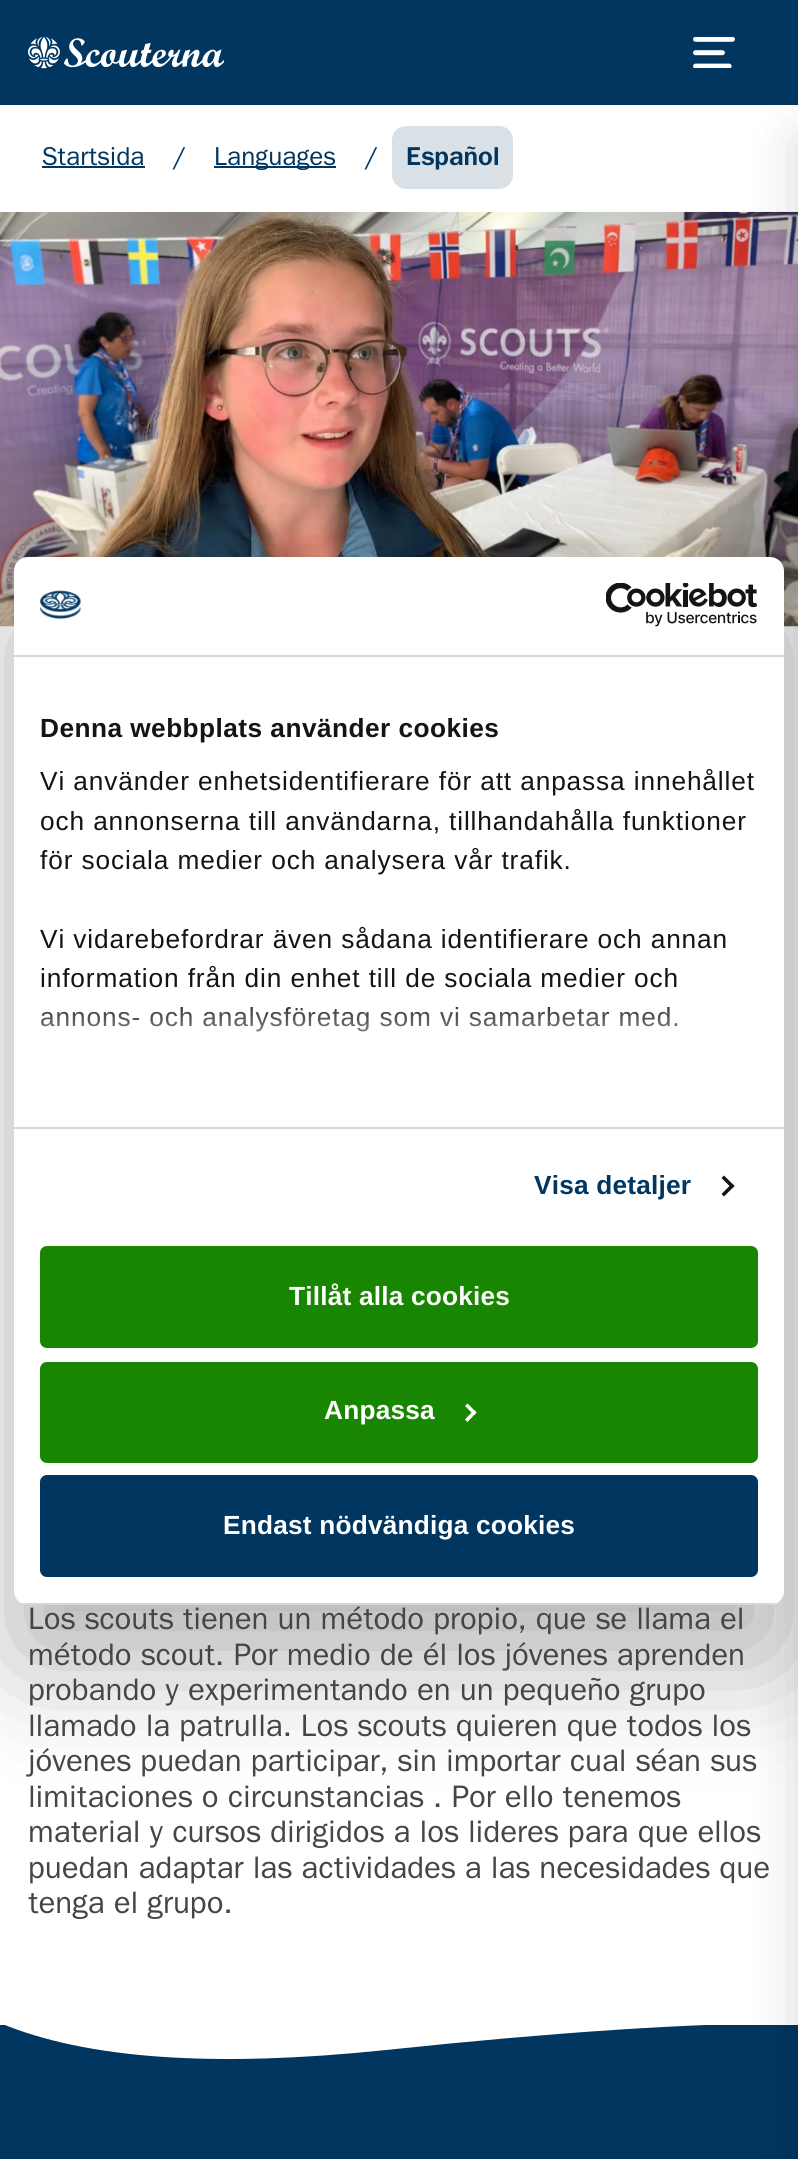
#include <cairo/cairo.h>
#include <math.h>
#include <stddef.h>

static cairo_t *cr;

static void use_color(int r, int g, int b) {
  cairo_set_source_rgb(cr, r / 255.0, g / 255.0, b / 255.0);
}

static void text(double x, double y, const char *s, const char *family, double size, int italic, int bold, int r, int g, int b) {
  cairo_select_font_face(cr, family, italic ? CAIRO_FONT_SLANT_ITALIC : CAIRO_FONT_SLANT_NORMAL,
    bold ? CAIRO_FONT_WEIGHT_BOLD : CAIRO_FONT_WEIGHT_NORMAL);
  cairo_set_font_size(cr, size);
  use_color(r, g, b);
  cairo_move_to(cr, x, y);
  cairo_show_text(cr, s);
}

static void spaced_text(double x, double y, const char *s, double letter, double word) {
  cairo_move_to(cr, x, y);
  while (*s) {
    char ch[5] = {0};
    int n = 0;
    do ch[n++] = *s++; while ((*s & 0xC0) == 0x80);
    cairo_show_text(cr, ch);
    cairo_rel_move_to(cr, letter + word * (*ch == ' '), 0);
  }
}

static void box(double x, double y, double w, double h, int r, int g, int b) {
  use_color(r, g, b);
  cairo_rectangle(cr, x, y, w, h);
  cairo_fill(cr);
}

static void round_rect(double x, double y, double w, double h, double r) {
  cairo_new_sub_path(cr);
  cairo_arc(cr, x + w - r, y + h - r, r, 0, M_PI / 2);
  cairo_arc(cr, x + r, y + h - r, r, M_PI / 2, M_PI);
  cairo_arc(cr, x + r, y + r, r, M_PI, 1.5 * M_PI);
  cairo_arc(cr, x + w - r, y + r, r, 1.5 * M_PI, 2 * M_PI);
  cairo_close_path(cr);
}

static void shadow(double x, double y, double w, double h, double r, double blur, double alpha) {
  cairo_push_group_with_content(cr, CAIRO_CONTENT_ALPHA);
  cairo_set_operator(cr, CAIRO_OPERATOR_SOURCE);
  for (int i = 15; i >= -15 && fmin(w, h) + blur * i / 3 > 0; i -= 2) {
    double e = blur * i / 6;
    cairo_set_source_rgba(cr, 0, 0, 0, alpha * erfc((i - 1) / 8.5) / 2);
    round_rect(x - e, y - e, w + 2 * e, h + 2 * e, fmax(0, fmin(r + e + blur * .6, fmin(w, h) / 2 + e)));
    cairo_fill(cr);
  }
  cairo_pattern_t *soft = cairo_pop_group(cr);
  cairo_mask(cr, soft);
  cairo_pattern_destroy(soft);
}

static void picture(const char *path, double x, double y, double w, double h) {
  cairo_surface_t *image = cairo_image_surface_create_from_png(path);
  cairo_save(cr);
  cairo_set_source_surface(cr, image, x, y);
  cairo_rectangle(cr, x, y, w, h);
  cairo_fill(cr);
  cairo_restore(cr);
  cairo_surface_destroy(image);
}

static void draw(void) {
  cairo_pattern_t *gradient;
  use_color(255, 255, 255);
  cairo_paint(cr);
  box(0, 0, 798, 105, 0, 54, 96);
  picture("img_01.png", 28, 36, 196, 33);
  picture("img_02.png", 693, 37, 42, 31);
  picture("img_03.png", 0, 211, 798, 416);
  box(0, 2025, 798, 134, 0, 54, 96);
  use_color(255, 255, 255);
  cairo_new_path(cr);
  cairo_move_to(cr, 798, 2023);
  cairo_curve_to(cr, 694, 2023, 556, 2032, 386, 2050);
  cairo_curve_to(cr, 214, 2068, 86, 2059, 0, 2023);
  cairo_line_to(cr, 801, 2023);
  cairo_close_path(cr);
  cairo_fill(cr);
  use_color(0, 0, 0);
  shadow(798, 140, 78, 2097, 0, 26, 0.15);
  cairo_set_source_rgba(cr, 1, 1, 1, 0.8);
  cairo_rectangle(cr, 0, 211, 492, 1);
  cairo_fill(cr);
  box(42, 166, 103, 2, 0, 54, 96);
  box(214, 166, 122, 2, 0, 54, 96);
  use_color(217, 225, 231);
  round_rect(392, 126, 121, 63, 14);
  cairo_fill(cr);
  use_color(0, 0, 0);
  shadow(14, 613, 770, 1048, 14, 59.5, 0.3);
  use_color(255, 255, 255);
  round_rect(14, 557, 770, 1048, 14);
  cairo_fill(cr);
  box(14, 655, 770, 2, 214, 214, 214);
  picture("img_04.png", 40, 590, 41, 30);
  picture("img_05.png", 606, 583, 151, 44);
  box(14, 1127, 770, 2, 214, 214, 214);
  use_color(20, 20, 20);
  cairo_new_path(cr);
  cairo_move_to(cr, 724, 1175.5);
  cairo_line_to(cr, 734.5, 1186);
  cairo_line_to(cr, 732, 1188.5);
  cairo_line_to(cr, 721.5, 1178);
  cairo_close_path(cr);
  cairo_fill(cr);
  cairo_new_path(cr);
  cairo_move_to(cr, 732, 1183.5);
  cairo_line_to(cr, 734.5, 1186);
  cairo_line_to(cr, 724, 1196.5);
  cairo_line_to(cr, 721.5, 1194);
  cairo_close_path(cr);
  cairo_fill(cr);
  cairo_save(cr);
  round_rect(14, 557, 770, 1048, 14);
  cairo_clip(cr);
  box(14, 1603, 770, 2, 214, 214, 214);
  cairo_restore(cr);
  use_color(24, 134, 0);
  round_rect(42, 1248, 714, 98, 5);
  cairo_fill_preserve(cr);
  cairo_set_line_width(cr, 4);
  cairo_stroke(cr);
  round_rect(42, 1364, 714, 97, 5);
  cairo_fill_preserve(cr);
  cairo_stroke(cr);
  use_color(255, 255, 255);
  cairo_new_path(cr);
  cairo_move_to(cr, 467.5, 1403.5);
  cairo_line_to(cr, 476.5, 1412.5);
  cairo_line_to(cr, 474, 1415);
  cairo_line_to(cr, 465, 1406);
  cairo_close_path(cr);
  cairo_fill(cr);
  cairo_new_path(cr);
  cairo_move_to(cr, 474, 1410);
  cairo_line_to(cr, 476.5, 1412.5);
  cairo_line_to(cr, 467.5, 1422);
  cairo_line_to(cr, 465, 1419.5);
  cairo_close_path(cr);
  cairo_fill(cr);
  use_color(0, 54, 96);
  round_rect(42, 1477, 714, 98, 5);
  cairo_fill_preserve(cr);
  cairo_stroke(cr);
  text(42, 165, "Startsida", "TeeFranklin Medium", 26.25, 0, 0, 0, 54, 96);
  text(172, 165, "/", "TeeFranklin Medium", 26.25, 0, 0, 0, 54, 96);
  text(214, 165, "Languages", "TeeFranklin Medium", 26.25, 0, 0, 0, 54, 96);
  text(364, 165, "/", "TeeFranklin Medium", 26.25, 0, 0, 0, 54, 96);
  text(406, 165, "Español", "TeeFranklin", 26.25, 0, 0, 0, 54, 96);
  text(28, 1629, "Los scouts tienen un método propio, que se llama el", "TeeFranklin Medium", 31.5, 0, 0, 68, 69, 71);
  text(28, 1665, "método scout. Por medio de él los jóvenes aprenden", "TeeFranklin Medium", 31.5, 0, 0, 68, 69, 71);
  text(28, 1700, "probando y experimentando en un pequeño grupo", "TeeFranklin Medium", 31.5, 0, 0, 68, 69, 71);
  text(28, 1736, "llamado la patrulla. Los scouts quieren que todos los", "TeeFranklin Medium", 31.5, 0, 0, 68, 69, 71);
  text(28, 1771, "jóvenes puedan participar, sin importar cual séan sus", "TeeFranklin Medium", 31.5, 0, 0, 68, 69, 71);
  text(28, 1807, "limitaciones o circunstancias . Por ello tenemos", "TeeFranklin Medium", 31.5, 0, 0, 68, 69, 71);
  text(28, 1842, "material y cursos dirigidos a los lideres para que ellos", "TeeFranklin Medium", 31.5, 0, 0, 68, 69, 71);
  text(28, 1878, "puedan adaptar las actividades a las necesidades que", "TeeFranklin Medium", 31.5, 0, 0, 68, 69, 71);
  text(28, 1913, "tenga el grupo.", "TeeFranklin Medium", 31.5, 0, 0, 68, 69, 71);
  cairo_select_font_face(cr, "Liberation Sans", CAIRO_FONT_SLANT_NORMAL, CAIRO_FONT_WEIGHT_BOLD);
  cairo_set_font_size(cr, 26.25);
  use_color(20, 20, 20);
  spaced_text(40, 737, "Denna webbplats använder cookies", 0.45, 0);
  cairo_select_font_face(cr, "Liberation Sans", CAIRO_FONT_SLANT_NORMAL, CAIRO_FONT_WEIGHT_NORMAL);
  spaced_text(40, 790, "Vi använder enhetsidentifierare för att anpassa innehållet", 0.88, 0);
  spaced_text(40, 830, "och annonserna till användarna, tillhandahålla funktioner", 0.88, 0);
  spaced_text(40, 869, "för sociala medier och analysera vår trafik.", 0.88, 0);
  spaced_text(40, 948, "Vi vidarebefordrar även sådana identifierare och annan", 0.88, 0);
  spaced_text(40, 987, "information från din enhet till de sociala medier och", 0.88, 0);
  spaced_text(40, 1026, "annons- och analysföretag som vi samarbetar med.", 0.88, 0);
  gradient = cairo_pattern_create_linear(388, 1126, 388, 995);
  cairo_pattern_add_color_stop_rgba(gradient, 0, 1, 1, 1, 1);
  cairo_pattern_add_color_stop_rgba(gradient, 0.5, 1, 1, 1, 0.8);
  cairo_pattern_add_color_stop_rgba(gradient, 1, 1, 1, 1, 0);
  cairo_set_source(cr, gradient);
  cairo_pattern_destroy(gradient);
  cairo_rectangle(cr, 41, 1007, 637, 25);
  cairo_fill(cr);
  cairo_select_font_face(cr, "Liberation Sans", CAIRO_FONT_SLANT_NORMAL, CAIRO_FONT_WEIGHT_BOLD);
  use_color(0, 54, 96);
  spaced_text(534, 1194, "Visa detaljer", 0.2, 0);
  use_color(255, 255, 255);
  spaced_text(289, 1305, "Tillåt alla cookies", 0.2, 0);
  spaced_text(324, 1419, "Anpassa", 0.2, 0);
  spaced_text(223, 1534, "Endast nödvändiga cookies", 0.2, 0);
}

int main(void) {
  cairo_surface_t *surface = cairo_image_surface_create(CAIRO_FORMAT_RGB24, 798, 2159);
  cr = cairo_create(surface);
  cairo_font_options_t *options = cairo_font_options_create();
  cairo_font_options_set_hint_metrics(options, CAIRO_HINT_METRICS_OFF);
  cairo_font_options_set_hint_style(options, CAIRO_HINT_STYLE_NONE);
  cairo_set_font_options(cr, options);
  cairo_set_miter_limit(cr, 4);
  draw();
  cairo_surface_write_to_png(surface, "out.png");
  cairo_font_options_destroy(options);
  cairo_destroy(cr);
  cairo_surface_destroy(surface);
  return 0;
}
